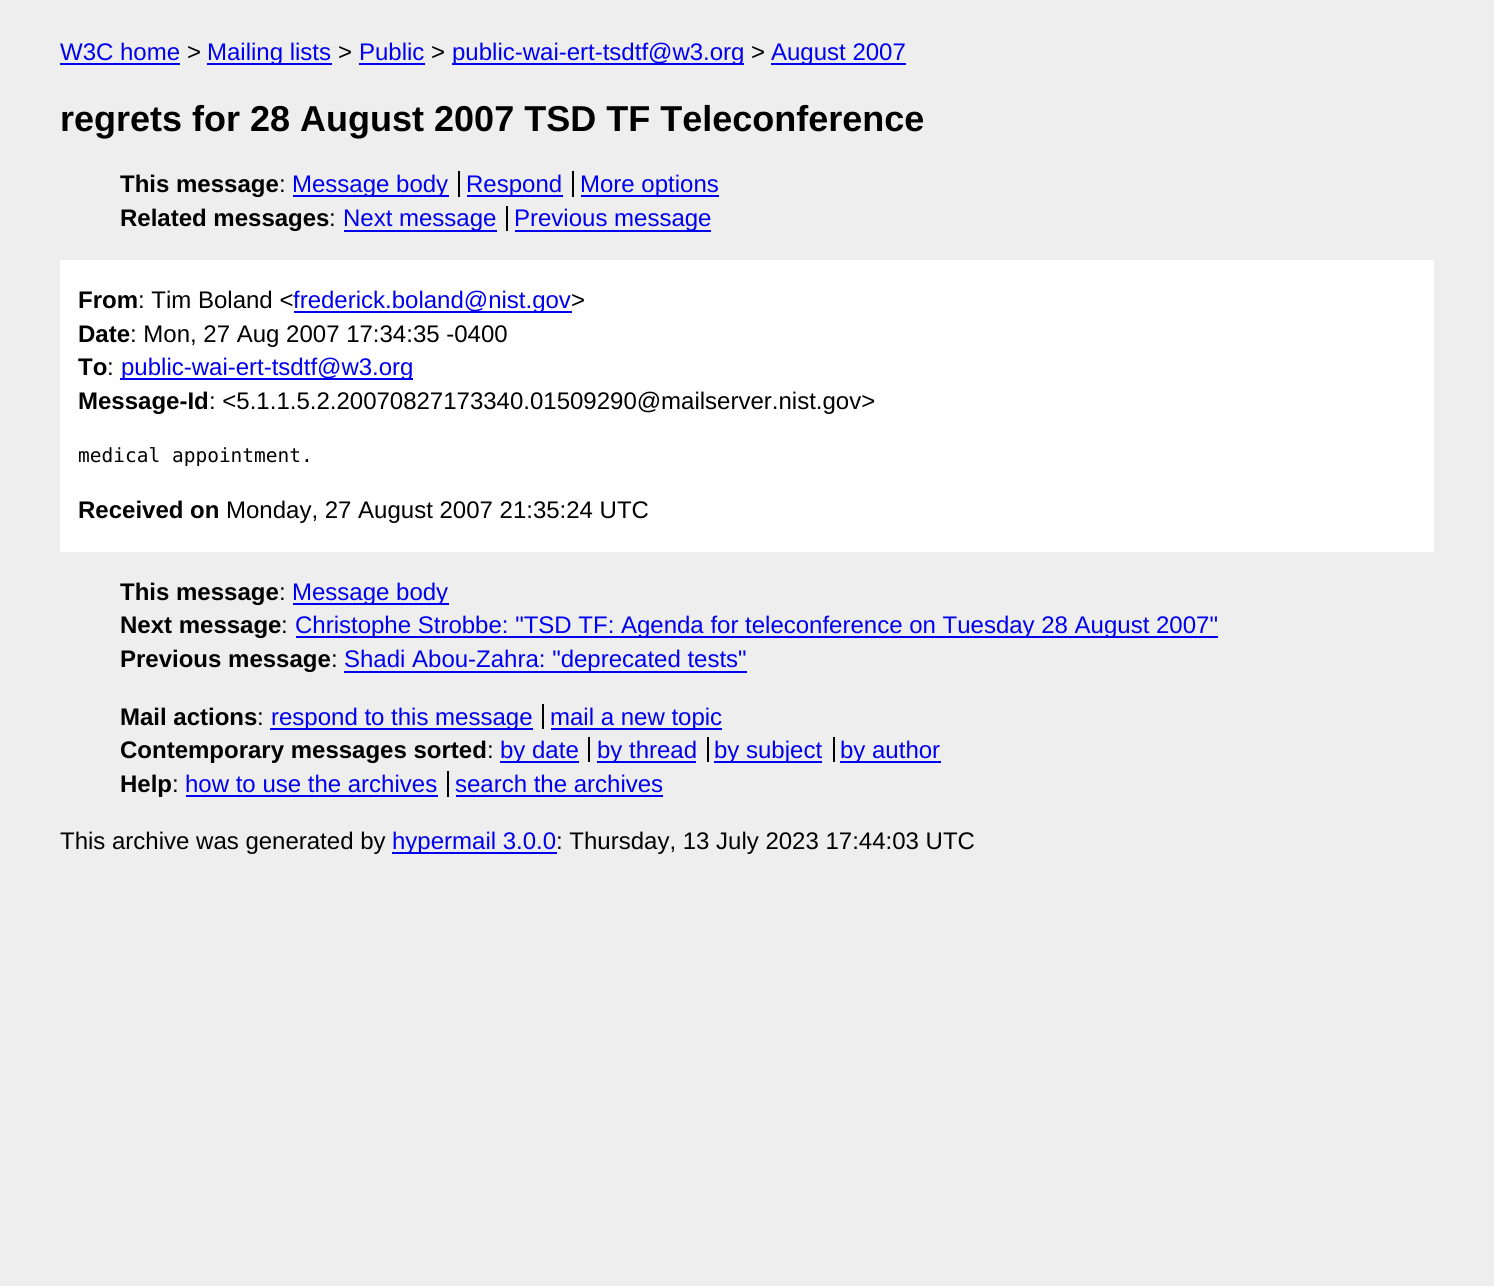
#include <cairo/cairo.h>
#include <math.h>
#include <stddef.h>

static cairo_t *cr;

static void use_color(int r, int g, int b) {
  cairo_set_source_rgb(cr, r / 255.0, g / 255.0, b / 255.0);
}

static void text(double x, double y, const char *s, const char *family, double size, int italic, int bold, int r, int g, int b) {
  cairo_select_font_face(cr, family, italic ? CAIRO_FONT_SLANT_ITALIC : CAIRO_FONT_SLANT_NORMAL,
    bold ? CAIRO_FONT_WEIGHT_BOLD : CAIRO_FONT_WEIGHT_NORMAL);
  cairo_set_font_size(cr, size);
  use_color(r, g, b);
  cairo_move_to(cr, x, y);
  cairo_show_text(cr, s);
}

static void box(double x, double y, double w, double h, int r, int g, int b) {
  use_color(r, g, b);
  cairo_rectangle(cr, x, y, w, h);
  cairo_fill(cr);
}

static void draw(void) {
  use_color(238, 238, 238);
  cairo_paint(cr);
  box(60, 63, 120, 2, 0, 0, 238);
  box(207, 63, 125, 2, 0, 0, 238);
  box(359, 63, 66, 2, 0, 0, 238);
  box(452, 63, 292, 2, 0, 0, 238);
  box(771, 63, 135, 2, 0, 0, 238);
  box(293, 195, 156, 2, 0, 0, 238);
  box(458, 171, 2, 26, 0, 0, 0);
  box(467, 195, 96, 2, 0, 0, 238);
  box(572, 171, 2, 26, 0, 0, 0);
  box(581, 195, 138, 2, 0, 0, 238);
  box(344, 230, 153, 2, 0, 0, 238);
  box(506, 206, 2, 25, 0, 0, 0);
  box(515, 230, 196, 2, 0, 0, 238);
  box(60, 260, 1374, 292, 255, 255, 255);
  box(294, 311, 278, 2, 0, 0, 238);
  box(120, 378, 293, 2, 0, 0, 238);
  box(293, 603, 156, 2, 0, 0, 238);
  box(296, 636, 922, 2, 0, 0, 238);
  box(344, 671, 403, 2, 0, 0, 238);
  box(270, 728, 263, 2, 0, 0, 238);
  box(542, 704, 2, 25, 0, 0, 0);
  box(551, 728, 171, 2, 0, 0, 238);
  box(500, 761, 79, 2, 0, 0, 238);
  box(588, 737, 2, 25, 0, 0, 0);
  box(597, 761, 99, 2, 0, 0, 238);
  box(707, 737, 2, 25, 0, 0, 0);
  box(714, 761, 108, 2, 0, 0, 238);
  box(833, 737, 2, 25, 0, 0, 0);
  box(840, 761, 101, 2, 0, 0, 238);
  box(186, 795, 252, 2, 0, 0, 238);
  box(447, 771, 2, 26, 0, 0, 0);
  box(456, 795, 207, 2, 0, 0, 238);
  box(392, 852, 165, 2, 0, 0, 238);
  text(60, 60, "W3C home", "Liberation Sans", 24, 0, 0, 0, 0, 238);
  text(187, 60, ">", "Liberation Sans", 24, 0, 0, 0, 0, 0);
  text(207, 60, "Mailing lists", "Liberation Sans", 24, 0, 0, 0, 0, 238);
  text(338, 60, ">", "Liberation Sans", 24, 0, 0, 0, 0, 0);
  text(359, 60, "Public", "Liberation Sans", 24, 0, 0, 0, 0, 238);
  text(431, 60, ">", "Liberation Sans", 24, 0, 0, 0, 0, 0);
  text(452, 60, "public-wai-ert-tsdtf@w3.org", "Liberation Sans", 24, 0, 0, 0, 0, 238);
  text(751, 60, ">", "Liberation Sans", 24, 0, 0, 0, 0, 0);
  text(771, 60, "August 2007", "Liberation Sans", 24, 0, 0, 0, 0, 238);
  text(60, 131, "regrets for 28 August 2007 TSD TF Teleconference", "Liberation Sans", 36, 0, 1, 0, 0, 0);
  text(120, 192, "This message", "Liberation Sans", 24, 0, 1, 0, 0, 0);
  text(279, 192, ":", "Liberation Sans", 24, 0, 0, 0, 0, 0);
  text(292, 192, "Message body", "Liberation Sans", 24, 0, 0, 0, 0, 238);
  text(466, 192, "Respond", "Liberation Sans", 24, 0, 0, 0, 0, 238);
  text(580, 192, "More options", "Liberation Sans", 24, 0, 0, 0, 0, 238);
  text(120, 226, "Related messages", "Liberation Sans", 24, 0, 1, 0, 0, 0);
  text(329, 226, ":", "Liberation Sans", 24, 0, 0, 0, 0, 0);
  text(343, 226, "Next message", "Liberation Sans", 24, 0, 0, 0, 0, 238);
  text(514, 226, "Previous message", "Liberation Sans", 24, 0, 0, 0, 0, 238);
  text(78, 308, "From", "Liberation Sans", 24, 0, 1, 0, 0, 0);
  text(138, 308, ": Tim Boland <", "Liberation Sans", 24, 0, 0, 0, 0, 0);
  text(293, 308, "frederick.boland@nist.gov", "Liberation Sans", 24, 0, 0, 0, 0, 238);
  text(571, 308, ">", "Liberation Sans", 24, 0, 0, 0, 0, 0);
  text(78, 342, "Date", "Liberation Sans", 24, 0, 1, 0, 0, 0);
  text(130, 342, ": Mon, 27 Aug 2007 17:34:35 -0400", "Liberation Sans", 24, 0, 0, 0, 0, 0);
  text(78, 375, "To", "Liberation Sans", 24, 0, 1, 0, 0, 0);
  text(107, 375, ":", "Liberation Sans", 24, 0, 0, 0, 0, 0);
  text(121, 375, "public-wai-ert-tsdtf@w3.org", "Liberation Sans", 24, 0, 0, 0, 0, 238);
  text(78, 409, "Message-Id", "Liberation Sans", 24, 0, 1, 0, 0, 0);
  text(209, 409, ": <5.1.1.5.2.20070827173340.01509290@mailserver.nist.gov>", "Liberation Sans", 24, 0, 0, 0, 0, 0);
  text(78, 462, "medical appointment.", "DejaVu Sans Mono", 19.5, 0, 0, 0, 0, 0);
  text(78, 518, "Received on", "Liberation Sans", 24, 0, 1, 0, 0, 0);
  text(226, 518, "Monday, 27 August 2007 21:35:24 UTC", "Liberation Sans", 24, 0, 0, 0, 0, 0);
  text(120, 600, "This message", "Liberation Sans", 24, 0, 1, 0, 0, 0);
  text(279, 600, ":", "Liberation Sans", 24, 0, 0, 0, 0, 0);
  text(292, 600, "Message body", "Liberation Sans", 24, 0, 0, 0, 0, 238);
  text(120, 633, "Next message", "Liberation Sans", 24, 0, 1, 0, 0, 0);
  text(281, 633, ":", "Liberation Sans", 24, 0, 0, 0, 0, 0);
  text(295, 633, "Christophe Strobbe: \"TSD TF: Agenda for teleconference on Tuesday 28 August 2007\"", "Liberation Sans", 24, 0, 0, 0, 0, 238);
  text(120, 667, "Previous message", "Liberation Sans", 24, 0, 1, 0, 0, 0);
  text(331, 667, ":", "Liberation Sans", 24, 0, 0, 0, 0, 0);
  text(344, 667, "Shadi Abou-Zahra: \"deprecated tests\"", "Liberation Sans", 24, 0, 0, 0, 0, 238);
  text(120, 725, "Mail actions", "Liberation Sans", 24, 0, 1, 0, 0, 0);
  text(257, 725, ":", "Liberation Sans", 24, 0, 0, 0, 0, 0);
  text(271, 725, "respond to this message", "Liberation Sans", 24, 0, 0, 0, 0, 238);
  text(550, 725, "mail a new topic", "Liberation Sans", 24, 0, 0, 0, 0, 238);
  text(120, 758, "Contemporary messages sorted", "Liberation Sans", 24, 0, 1, 0, 0, 0);
  text(487, 758, ":", "Liberation Sans", 24, 0, 0, 0, 0, 0);
  text(500, 758, "by date", "Liberation Sans", 24, 0, 0, 0, 0, 238);
  text(597, 758, "by thread", "Liberation Sans", 24, 0, 0, 0, 0, 238);
  text(714, 758, "by subject", "Liberation Sans", 24, 0, 0, 0, 0, 238);
  text(840, 758, "by author", "Liberation Sans", 24, 0, 0, 0, 0, 238);
  text(120, 792, "Help", "Liberation Sans", 24, 0, 1, 0, 0, 0);
  text(172, 792, ":", "Liberation Sans", 24, 0, 0, 0, 0, 0);
  text(185, 792, "how to use the archives", "Liberation Sans", 24, 0, 0, 0, 0, 238);
  text(455, 792, "search the archives", "Liberation Sans", 24, 0, 0, 0, 0, 238);
  text(60, 849, "This archive was generated by", "Liberation Sans", 24, 0, 0, 0, 0, 0);
  text(392, 849, "hypermail 3.0.0", "Liberation Sans", 24, 0, 0, 0, 0, 238);
  text(556, 849, ": Thursday, 13 July 2023 17:44:03 UTC", "Liberation Sans", 24, 0, 0, 0, 0, 0);
}

int main(void) {
  cairo_surface_t *surface = cairo_image_surface_create(CAIRO_FORMAT_RGB24, 1494, 1286);
  cr = cairo_create(surface);
  cairo_font_options_t *options = cairo_font_options_create();
  cairo_font_options_set_hint_metrics(options, CAIRO_HINT_METRICS_OFF);
  cairo_font_options_set_hint_style(options, CAIRO_HINT_STYLE_NONE);
  cairo_set_font_options(cr, options);
  cairo_set_miter_limit(cr, 4);
  draw();
  cairo_surface_write_to_png(surface, "out.png");
  cairo_font_options_destroy(options);
  cairo_destroy(cr);
  cairo_surface_destroy(surface);
  return 0;
}
